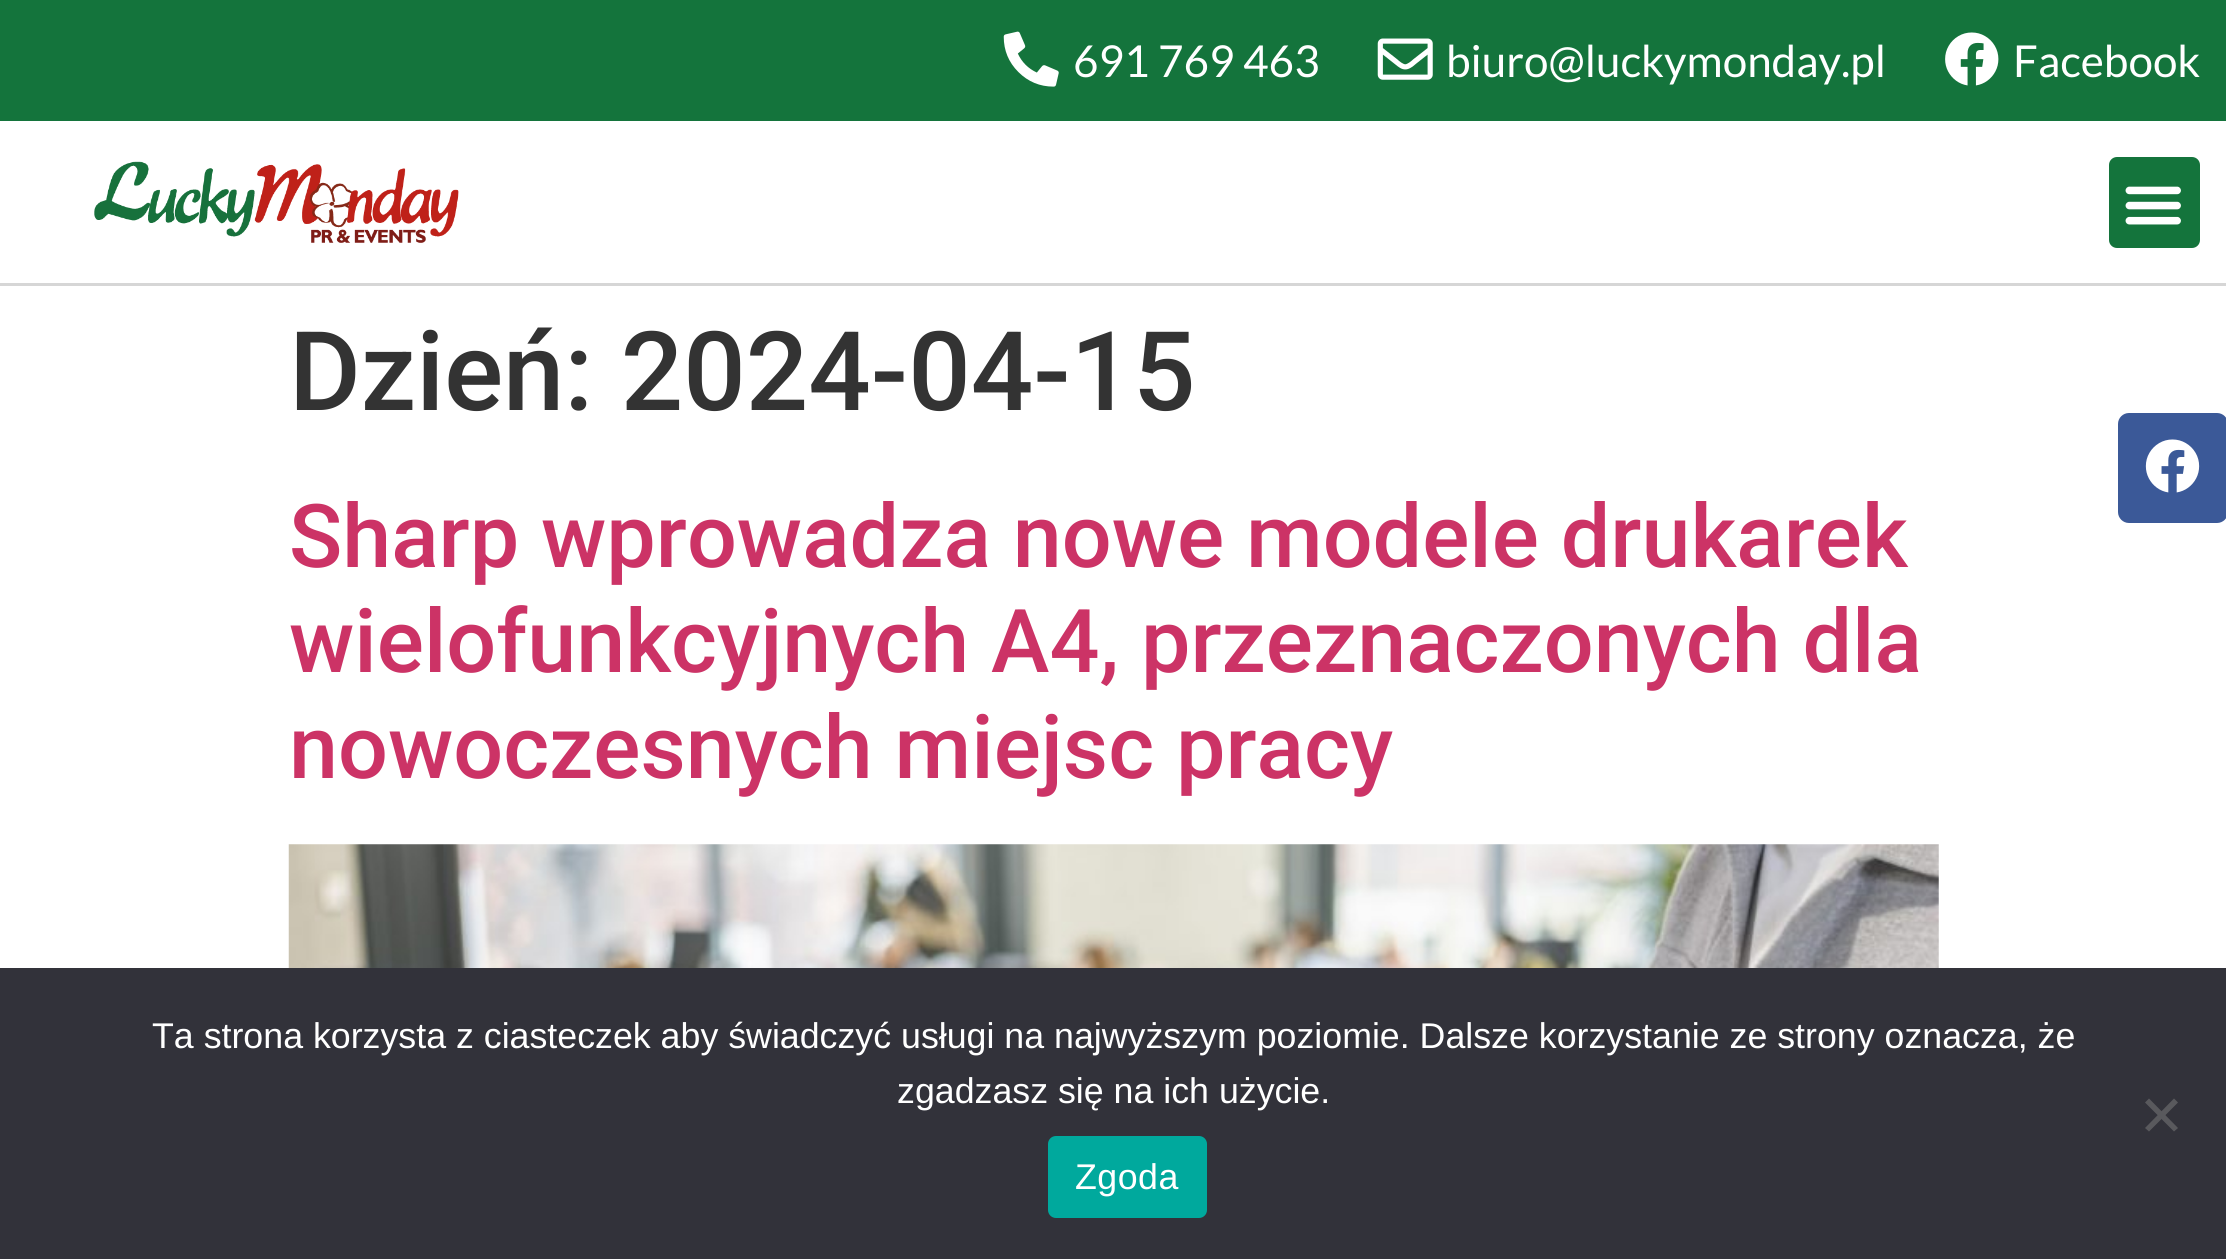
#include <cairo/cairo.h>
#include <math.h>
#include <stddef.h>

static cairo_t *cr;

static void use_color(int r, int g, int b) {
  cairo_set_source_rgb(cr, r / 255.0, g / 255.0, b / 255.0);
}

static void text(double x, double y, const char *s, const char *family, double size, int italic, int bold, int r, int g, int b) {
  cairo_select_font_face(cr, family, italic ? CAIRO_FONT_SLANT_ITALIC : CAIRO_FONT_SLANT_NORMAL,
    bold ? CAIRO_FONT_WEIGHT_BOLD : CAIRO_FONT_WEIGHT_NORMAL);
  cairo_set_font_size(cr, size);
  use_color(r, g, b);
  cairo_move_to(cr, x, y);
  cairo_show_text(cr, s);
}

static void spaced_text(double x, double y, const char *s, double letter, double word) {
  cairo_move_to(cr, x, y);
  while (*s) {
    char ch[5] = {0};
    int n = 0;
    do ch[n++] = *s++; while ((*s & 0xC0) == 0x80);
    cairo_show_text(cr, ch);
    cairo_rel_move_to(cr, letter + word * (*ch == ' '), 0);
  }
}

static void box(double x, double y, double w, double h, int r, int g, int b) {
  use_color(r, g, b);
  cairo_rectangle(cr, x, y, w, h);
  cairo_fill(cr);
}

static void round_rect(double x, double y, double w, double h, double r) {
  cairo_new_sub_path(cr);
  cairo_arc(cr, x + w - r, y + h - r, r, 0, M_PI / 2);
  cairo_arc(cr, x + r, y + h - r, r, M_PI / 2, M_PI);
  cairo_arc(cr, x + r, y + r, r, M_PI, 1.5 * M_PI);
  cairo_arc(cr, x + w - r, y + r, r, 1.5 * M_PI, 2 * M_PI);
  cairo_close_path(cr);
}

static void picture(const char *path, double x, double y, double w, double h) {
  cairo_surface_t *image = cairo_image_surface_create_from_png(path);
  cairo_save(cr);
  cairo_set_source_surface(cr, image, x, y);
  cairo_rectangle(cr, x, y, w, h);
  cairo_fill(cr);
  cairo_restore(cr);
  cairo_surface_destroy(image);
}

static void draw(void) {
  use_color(255, 255, 255);
  cairo_paint(cr);
  box(0, 0, 2226, 121, 20, 116, 60);
  picture("img_01.png", 1003, 31, 56, 56);
  picture("img_02.png", 1377, 38, 56, 42);
  picture("img_03.png", 1945, 32, 54, 54);
  box(0, 283, 2226, 3, 214, 214, 214);
  picture("img_04.png", 94, 161, 365, 82);
  use_color(20, 116, 60);
  round_rect(2109, 157, 91, 91, 8);
  cairo_fill(cr);
  picture("img_05.png", 2125, 186, 56, 39);
  use_color(59, 89, 152);
  round_rect(2118, 413, 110, 110, 11);
  cairo_fill(cr);
  picture("img_06.png", 2145, 439, 55, 54);
  picture("img_07.png", 288, 844, 1651, 124);
  box(0, 968, 2226, 291, 50, 50, 58);
  use_color(89, 89, 93);
  cairo_new_path(cr);
  cairo_move_to(cr, 2174, 1098.5);
  cairo_line_to(cr, 2178, 1102.5);
  cairo_line_to(cr, 2149, 1131.5);
  cairo_line_to(cr, 2145, 1128);
  cairo_close_path(cr);
  cairo_fill(cr);
  cairo_new_path(cr);
  cairo_move_to(cr, 2145, 1102.5);
  cairo_line_to(cr, 2149, 1098.5);
  cairo_line_to(cr, 2178, 1128);
  cairo_line_to(cr, 2174, 1131.5);
  cairo_close_path(cr);
  cairo_fill(cr);
  use_color(0, 169, 157);
  round_rect(1048, 1136, 159, 82, 8);
  cairo_fill(cr);
  text(1073, 77, "691 769 463", "Lato", 44, 0, 0, 255, 255, 255);
  text(1446, 77, "biuro@luckymonday.pl", "Lato", 44, 0, 0, 255, 255, 255);
  text(2013, 77, "Facebook", "Lato", 44, 0, 0, 255, 255, 255);
  text(289, 410, "Dzień: 2024-04-15", "Roboto Medium", 110, 0, 0, 51, 51, 51);
  text(289, 567, "Sharp wprowadza nowe modele drukarek", "Roboto Medium", 88, 0, 0, 204, 51, 102);
  text(289, 672, "wielofunkcyjnych A4, przeznaczonych dla", "Roboto Medium", 88, 0, 0, 204, 51, 102);
  text(289, 778, "nowoczesnych miejsc pracy", "Roboto Medium", 88, 0, 0, 204, 51, 102);
  text(152, 1048, "Ta strona korzysta z ciasteczek aby świadczyć usługi na najwyższym poziomie. Dalsze korzystanie ze strony oznacza, że", "Liberation Sans", 35.75, 0, 0, 255, 255, 255);
  text(897, 1103, "zgadzasz się na ich użycie.", "Liberation Sans", 35.75, 0, 0, 255, 255, 255);
  spaced_text(1075, 1189, "Zgoda", 0.5, 0);
}

int main(void) {
  cairo_surface_t *surface = cairo_image_surface_create(CAIRO_FORMAT_RGB24, 2226, 1259);
  cr = cairo_create(surface);
  cairo_font_options_t *options = cairo_font_options_create();
  cairo_font_options_set_hint_metrics(options, CAIRO_HINT_METRICS_OFF);
  cairo_font_options_set_hint_style(options, CAIRO_HINT_STYLE_NONE);
  cairo_set_font_options(cr, options);
  cairo_set_miter_limit(cr, 4);
  draw();
  cairo_surface_write_to_png(surface, "out.png");
  cairo_font_options_destroy(options);
  cairo_destroy(cr);
  cairo_surface_destroy(surface);
  return 0;
}
